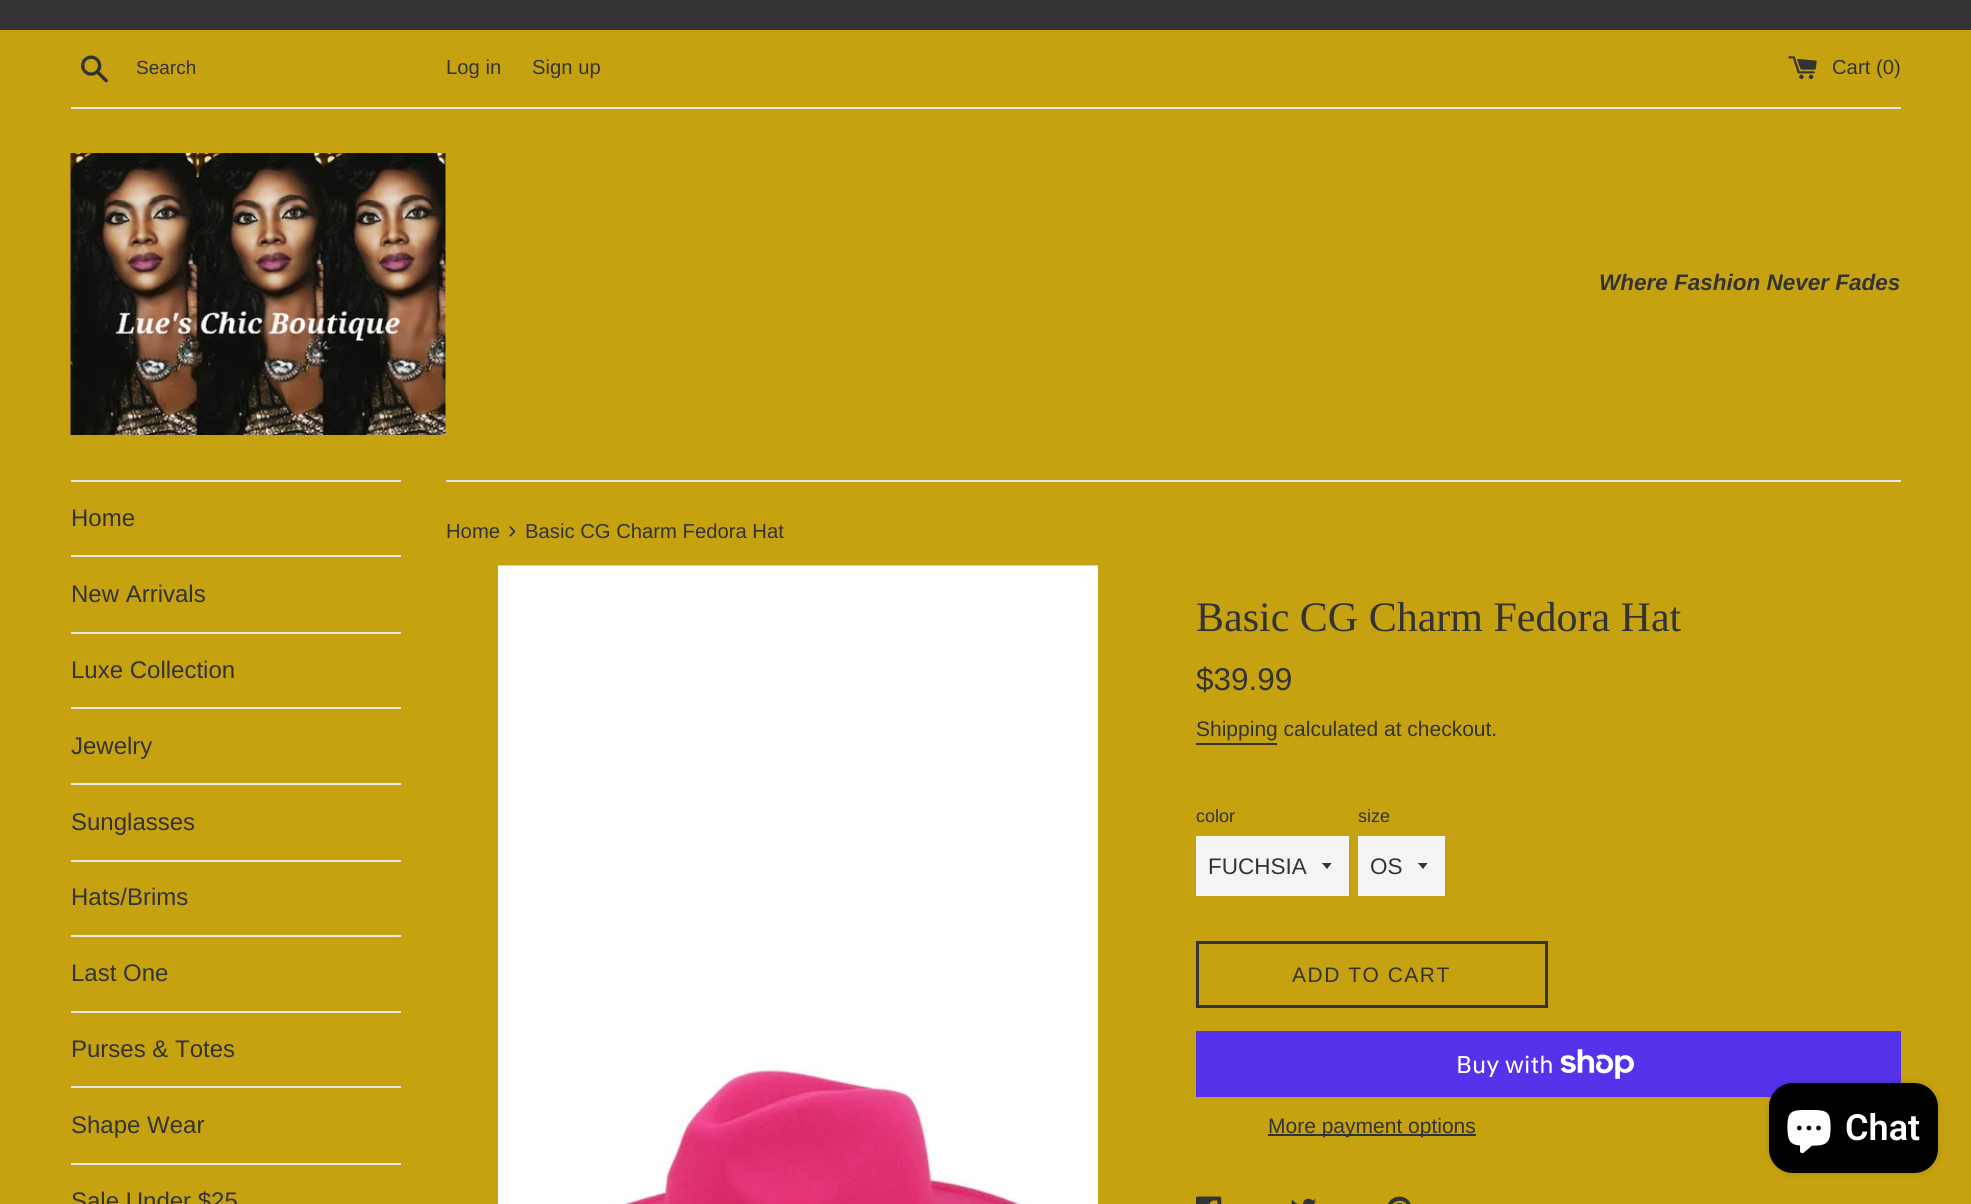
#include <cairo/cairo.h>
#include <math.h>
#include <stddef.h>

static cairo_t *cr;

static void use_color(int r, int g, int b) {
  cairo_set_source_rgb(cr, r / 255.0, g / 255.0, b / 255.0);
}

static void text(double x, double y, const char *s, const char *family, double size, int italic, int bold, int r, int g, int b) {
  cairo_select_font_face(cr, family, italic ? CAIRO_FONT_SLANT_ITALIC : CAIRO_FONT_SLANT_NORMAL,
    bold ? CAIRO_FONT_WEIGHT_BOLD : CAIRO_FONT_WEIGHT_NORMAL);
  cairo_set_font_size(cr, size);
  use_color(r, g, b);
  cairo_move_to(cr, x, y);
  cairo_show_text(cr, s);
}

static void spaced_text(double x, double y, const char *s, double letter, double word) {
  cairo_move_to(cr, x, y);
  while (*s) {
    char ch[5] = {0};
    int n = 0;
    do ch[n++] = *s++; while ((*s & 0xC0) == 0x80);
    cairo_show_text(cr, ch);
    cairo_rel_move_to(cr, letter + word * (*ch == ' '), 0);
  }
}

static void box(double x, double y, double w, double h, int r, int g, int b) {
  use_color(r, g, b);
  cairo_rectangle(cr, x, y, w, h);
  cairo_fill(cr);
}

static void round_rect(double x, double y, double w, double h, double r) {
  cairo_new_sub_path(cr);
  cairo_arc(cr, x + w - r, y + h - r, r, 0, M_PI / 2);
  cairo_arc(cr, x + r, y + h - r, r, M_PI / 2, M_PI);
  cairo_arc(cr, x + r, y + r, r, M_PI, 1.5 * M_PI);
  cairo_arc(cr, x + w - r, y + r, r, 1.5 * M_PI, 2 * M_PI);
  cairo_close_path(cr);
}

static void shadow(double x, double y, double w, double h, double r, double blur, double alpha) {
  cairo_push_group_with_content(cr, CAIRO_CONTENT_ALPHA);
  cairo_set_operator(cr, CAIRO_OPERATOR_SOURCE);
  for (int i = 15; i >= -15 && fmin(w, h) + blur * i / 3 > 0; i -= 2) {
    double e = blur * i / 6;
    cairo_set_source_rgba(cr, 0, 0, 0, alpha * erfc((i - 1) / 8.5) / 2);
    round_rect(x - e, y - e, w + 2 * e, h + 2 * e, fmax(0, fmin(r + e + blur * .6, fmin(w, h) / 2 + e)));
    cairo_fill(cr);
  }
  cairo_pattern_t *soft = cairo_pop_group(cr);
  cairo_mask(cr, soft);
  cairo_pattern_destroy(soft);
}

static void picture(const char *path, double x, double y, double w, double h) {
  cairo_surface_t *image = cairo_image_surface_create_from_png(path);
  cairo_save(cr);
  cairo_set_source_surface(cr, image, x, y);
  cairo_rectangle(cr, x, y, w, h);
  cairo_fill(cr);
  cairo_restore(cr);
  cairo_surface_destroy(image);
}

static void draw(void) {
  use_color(198, 162, 16);
  cairo_paint(cr);
  box(0, 0, 1971, 30, 51, 51, 51);
  picture("img_01.png", 81, 55, 27, 28);
  picture("img_02.png", 1788, 56, 29, 24);
  box(71, 107, 1830, 2, 232, 232, 232);
  picture("img_03.png", 70, 153, 376, 282);
  box(71, 480, 330, 2, 232, 232, 232);
  box(71, 555, 330, 2, 232, 232, 232);
  box(71, 632, 330, 2, 232, 232, 232);
  box(71, 707, 330, 2, 232, 232, 232);
  box(71, 783, 330, 2, 232, 232, 232);
  box(71, 860, 330, 2, 232, 232, 232);
  box(71, 935, 330, 2, 232, 232, 232);
  box(71, 1011, 330, 2, 232, 232, 232);
  box(71, 1086, 330, 2, 232, 232, 232);
  box(71, 1163, 330, 2, 232, 232, 232);
  box(446, 480, 1455, 2, 232, 232, 232);
  picture("img_04.png", 498, 565, 600, 639);
  box(1196, 743, 81, 2, 51, 51, 51);
  box(1196, 836, 153, 60, 244, 244, 244);
  cairo_save(cr);
  cairo_rectangle(cr, 1322, 863, 12, 7);
  cairo_clip(cr);
  use_color(51, 51, 51);
  cairo_new_path(cr);
  cairo_move_to(cr, 1321.5, 862.5);
  cairo_line_to(cr, 1327, 869);
  cairo_line_to(cr, 1332, 862.5);
  cairo_close_path(cr);
  cairo_fill(cr);
  cairo_restore(cr);
  box(1358, 836, 87, 60, 244, 244, 244);
  cairo_save(cr);
  cairo_rectangle(cr, 1418, 863, 12, 7);
  cairo_clip(cr);
  use_color(51, 51, 51);
  cairo_new_path(cr);
  cairo_move_to(cr, 1417.5, 862.5);
  cairo_line_to(cr, 1423, 869);
  cairo_line_to(cr, 1428, 862.5);
  cairo_close_path(cr);
  cairo_fill(cr);
  cairo_restore(cr);
  cairo_rectangle(cr, 1197.5, 942.5, 349, 64);
  use_color(51, 51, 51);
  cairo_set_line_width(cr, 3);
  cairo_stroke(cr);
  box(1196, 1031, 705, 66, 84, 51, 235);
  picture("img_05.png", 1560, 1049, 74, 30);
  box(1268, 1134, 208, 2, 51, 51, 51);
  picture("img_06.png", 1196, 1196, 26, 8);
  picture("img_07.png", 1291, 1198, 26, 6);
  picture("img_08.png", 1388, 1196, 23, 8);
  use_color(0, 0, 0);
  shadow(1769, 1083, 169, 90, 24, 4, 0.15);
  use_color(0, 0, 0);
  round_rect(1769, 1083, 169, 90, 24);
  cairo_fill(cr);
  picture("img_09.png", 1787, 1110, 44, 44);
  text(136, 74, "Search", "Liberation Sans", 19, 0, 0, 51, 51, 51);
  text(446, 74, "Log in", "Liberation Sans", 20.25, 0, 0, 51, 51, 51);
  text(532, 74, "Sign up", "Liberation Sans", 20.25, 0, 0, 51, 51, 51);
  text(1832, 74, "Cart (0)", "Liberation Sans", 20.25, 0, 0, 51, 51, 51);
  text(1599, 290, "Where Fashion Never Fades", "Liberation Sans", 22.5, 1, 1, 51, 51, 51);
  text(71, 526, "Home", "Liberation Sans", 24, 0, 0, 51, 51, 51);
  text(71, 602, "New Arrivals", "Liberation Sans", 24, 0, 0, 51, 51, 51);
  text(71, 678, "Luxe Collection", "Liberation Sans", 24, 0, 0, 51, 51, 51);
  text(71, 754, "Jewelry", "Liberation Sans", 24, 0, 0, 51, 51, 51);
  text(71, 830, "Sunglasses", "Liberation Sans", 24, 0, 0, 51, 51, 51);
  text(71, 905, "Hats/Brims", "Liberation Sans", 24, 0, 0, 51, 51, 51);
  text(71, 981, "Last One", "Liberation Sans", 24, 0, 0, 51, 51, 51);
  text(71, 1057, "Purses & Totes", "Liberation Sans", 24, 0, 0, 51, 51, 51);
  text(71, 1133, "Shape Wear", "Liberation Sans", 24, 0, 0, 51, 51, 51);
  text(71, 1209, "Sale Under $25", "Liberation Sans", 24, 0, 0, 51, 51, 51);
  text(446, 538, "Home", "Liberation Sans", 20.25, 0, 0, 51, 51, 51);
  text(508, 538, "›", "Liberation Sans", 25, 0, 0, 51, 51, 51);
  text(525, 538, "Basic CG Charm Fedora Hat", "Liberation Sans", 20.25, 0, 0, 51, 51, 51);
  text(1196, 631, "Basic CG Charm Fedora Hat", "Liberation Serif", 42, 0, 0, 51, 51, 51);
  text(1196, 690, "$39.99", "Liberation Sans", 31.5, 0, 0, 51, 51, 51);
  text(1196, 736, "Shipping calculated at checkout.", "Liberation Sans", 21, 0, 0, 51, 51, 51);
  text(1196, 822, "color", "Liberation Sans", 18, 0, 0, 51, 51, 51);
  text(1208, 874, "FUCHSIA", "Liberation Sans", 22.5, 0, 0, 51, 51, 51);
  text(1358, 822, "size", "Liberation Sans", 18, 0, 0, 51, 51, 51);
  text(1370, 874, "OS", "Liberation Sans", 22.5, 0, 0, 51, 51, 51);
  cairo_set_font_size(cr, 21);
  spaced_text(1292, 982, "ADD TO CART", 1.5, 0);
  text(1456, 1073, "Buy with", "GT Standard", 24, 0, 0, 255, 255, 255);
  text(1268, 1133, "More payment options", "Liberation Sans", 21, 0, 0, 51, 51, 51);
  text(1845, 1140, "Chat", "Roboto SemiBold", 36, 0, 0, 255, 255, 255);
}

int main(void) {
  cairo_surface_t *surface = cairo_image_surface_create(CAIRO_FORMAT_RGB24, 1971, 1204);
  cr = cairo_create(surface);
  cairo_font_options_t *options = cairo_font_options_create();
  cairo_font_options_set_hint_metrics(options, CAIRO_HINT_METRICS_OFF);
  cairo_font_options_set_hint_style(options, CAIRO_HINT_STYLE_NONE);
  cairo_set_font_options(cr, options);
  cairo_set_miter_limit(cr, 4);
  draw();
  cairo_surface_write_to_png(surface, "out.png");
  cairo_font_options_destroy(options);
  cairo_destroy(cr);
  cairo_surface_destroy(surface);
  return 0;
}
